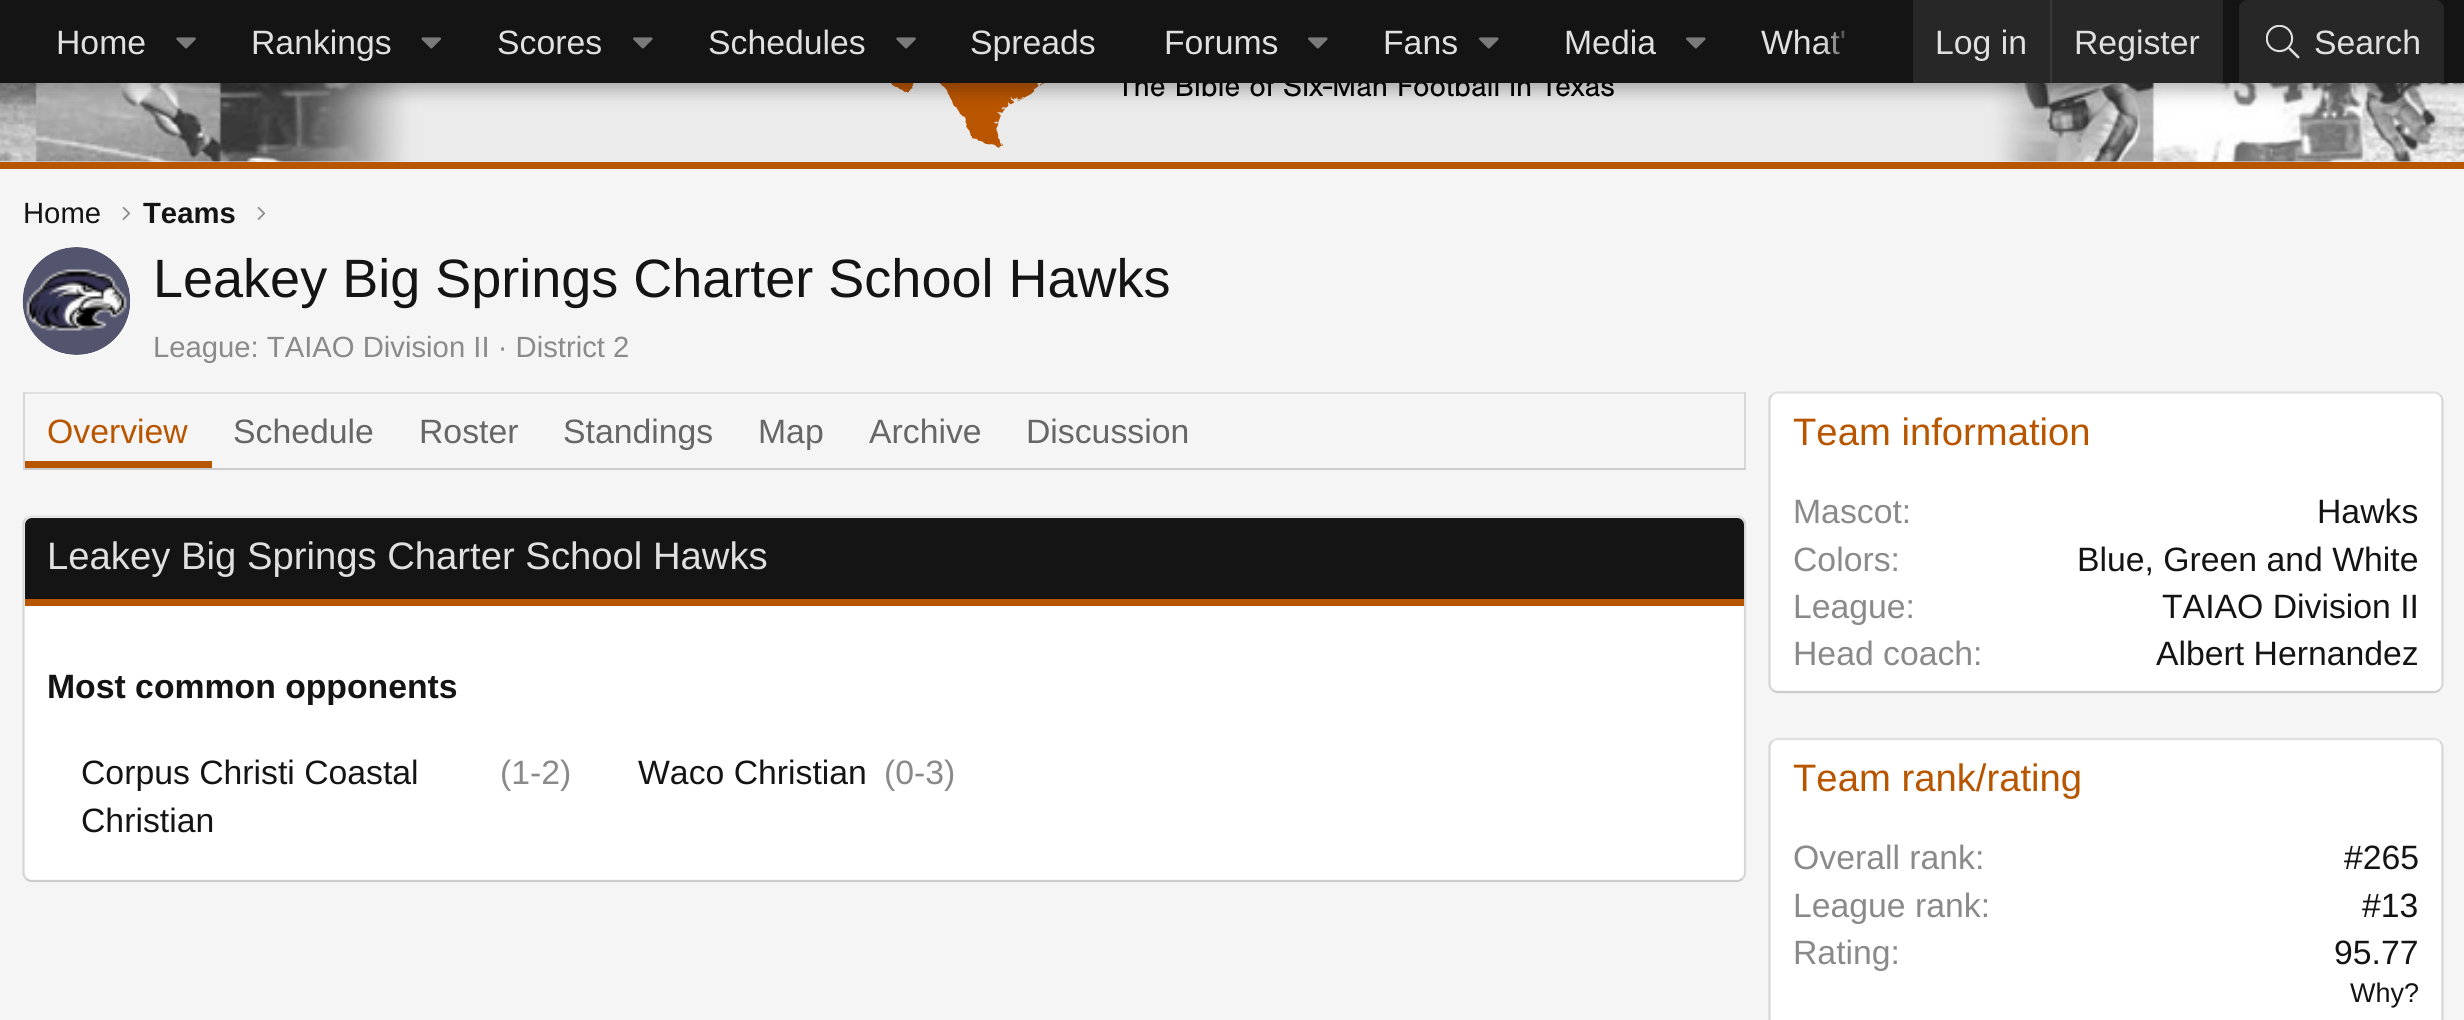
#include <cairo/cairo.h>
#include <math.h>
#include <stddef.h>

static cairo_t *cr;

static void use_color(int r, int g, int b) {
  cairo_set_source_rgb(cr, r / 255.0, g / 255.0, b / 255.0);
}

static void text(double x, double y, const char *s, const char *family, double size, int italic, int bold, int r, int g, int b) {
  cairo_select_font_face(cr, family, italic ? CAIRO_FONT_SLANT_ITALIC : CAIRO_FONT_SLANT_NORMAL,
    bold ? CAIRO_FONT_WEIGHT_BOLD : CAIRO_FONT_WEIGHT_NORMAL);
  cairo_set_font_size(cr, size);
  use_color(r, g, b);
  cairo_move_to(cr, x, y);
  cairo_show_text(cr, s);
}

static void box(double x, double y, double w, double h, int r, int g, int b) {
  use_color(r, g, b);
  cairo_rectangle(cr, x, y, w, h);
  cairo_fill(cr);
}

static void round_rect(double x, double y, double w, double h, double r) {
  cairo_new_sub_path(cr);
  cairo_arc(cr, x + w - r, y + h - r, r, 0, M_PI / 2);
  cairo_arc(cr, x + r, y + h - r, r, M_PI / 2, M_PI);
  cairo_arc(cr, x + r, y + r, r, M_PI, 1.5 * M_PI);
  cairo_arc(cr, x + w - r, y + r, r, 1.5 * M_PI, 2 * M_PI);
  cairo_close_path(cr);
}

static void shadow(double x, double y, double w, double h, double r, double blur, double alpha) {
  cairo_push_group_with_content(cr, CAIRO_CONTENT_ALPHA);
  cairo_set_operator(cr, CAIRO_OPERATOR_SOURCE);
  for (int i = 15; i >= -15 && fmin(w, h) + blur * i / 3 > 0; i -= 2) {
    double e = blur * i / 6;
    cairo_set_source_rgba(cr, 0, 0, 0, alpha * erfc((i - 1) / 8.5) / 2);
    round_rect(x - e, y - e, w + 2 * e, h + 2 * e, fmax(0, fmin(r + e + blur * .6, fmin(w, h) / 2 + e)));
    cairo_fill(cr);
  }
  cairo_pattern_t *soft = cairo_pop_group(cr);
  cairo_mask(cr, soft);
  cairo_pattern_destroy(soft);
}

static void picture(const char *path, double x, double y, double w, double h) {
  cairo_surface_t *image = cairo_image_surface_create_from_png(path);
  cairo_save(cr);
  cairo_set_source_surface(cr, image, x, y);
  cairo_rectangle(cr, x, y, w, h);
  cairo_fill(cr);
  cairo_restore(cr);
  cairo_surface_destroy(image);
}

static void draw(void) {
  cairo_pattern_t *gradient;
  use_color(235, 235, 235);
  cairo_paint(cr);
  picture("img_05.png", 0, 83, 2464, 79);
  picture("img_06.png", 890, 83, 724, 65);
  use_color(0, 0, 0);
  shadow(-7, -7, 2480, 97, 0, 9, 0.3);
  box(0, 0, 2464, 83, 20, 20, 20);
  picture("img_01.png", 176, 37, 20, 12);
  picture("img_02.png", 421, 37, 20, 12);
  picture("img_03.png", 633, 37, 20, 12);
  picture("img_01.png", 896, 37, 20, 12);
  picture("img_03.png", 1308, 37, 20, 12);
  picture("img_03.png", 1479, 37, 20, 12);
  picture("img_03.png", 1686, 37, 20, 12);
  box(1913, 0, 310, 83, 39, 39, 39);
  box(2050, 0, 2, 83, 56, 56, 56);
  use_color(39, 39, 39);
  cairo_new_path(cr);
  cairo_move_to(cr, 2248, 0);
  cairo_line_to(cr, 2435, 0);
  cairo_curve_to(cr, 2440, 0, 2444, 4, 2444, 9);
  cairo_line_to(cr, 2444, 83);
  cairo_line_to(cr, 2239, 83);
  cairo_line_to(cr, 2239, 9);
  cairo_curve_to(cr, 2239, 4, 2243, 0, 2248, 0);
  cairo_close_path(cr);
  cairo_fill(cr);
  picture("img_04.png", 2266, 25, 34, 34);
  box(0, 169, 2464, 851, 245, 245, 245);
  box(0, 162, 2464, 7, 184, 86, 0);
  picture("img_07.png", 122, 206, 9, 14);
  picture("img_07.png", 257, 206, 9, 14);
  use_color(255, 255, 255);
  cairo_arc(cr, 77, 302, 54, 0, 2 * M_PI);
  cairo_fill(cr);
  picture("img_08.png", 22, 247, 109, 108);
  box(23, 392, 1723, 2, 224, 224, 224);
  box(1744, 392, 2, 78, 214, 214, 214);
  box(23, 468, 1723, 2, 204, 204, 204);
  box(23, 392, 2, 78, 214, 214, 214);
  box(25, 461, 187, 7, 184, 86, 0);
  use_color(255, 255, 255);
  round_rect(23, 515, 1723, 367, 9);
  cairo_fill(cr);
  cairo_new_path(cr);
  cairo_move_to(cr, 26, 518.5);
  cairo_curve_to(cr, 27.5, 517, 29.5, 516.5, 31.5, 516.5);
  cairo_line_to(cr, 1737, 516.5);
  cairo_curve_to(cr, 1739, 516.5, 1741, 517, 1742.5, 518.5);
  use_color(224, 224, 224);
  cairo_set_line_width(cr, 2.2);
  cairo_stroke(cr);
  cairo_new_path(cr);
  cairo_move_to(cr, 1742.5, 518.5);
  cairo_curve_to(cr, 1744, 520, 1745, 522, 1745, 524);
  cairo_line_to(cr, 1745, 873);
  cairo_curve_to(cr, 1745, 875, 1744, 877, 1742.5, 878.5);
  use_color(214, 214, 214);
  cairo_stroke(cr);
  cairo_new_path(cr);
  cairo_move_to(cr, 1742.5, 878.5);
  cairo_curve_to(cr, 1741, 880, 1739, 881, 1737, 881);
  cairo_line_to(cr, 31.5, 881);
  cairo_curve_to(cr, 29.5, 881, 27.5, 880, 26, 878.5);
  use_color(204, 204, 204);
  cairo_stroke(cr);
  cairo_new_path(cr);
  cairo_move_to(cr, 26, 878.5);
  cairo_curve_to(cr, 24.5, 877, 23.5, 875, 23.5, 873);
  cairo_line_to(cr, 23.5, 524);
  cairo_curve_to(cr, 23.5, 522, 24.5, 520, 26, 518.5);
  use_color(214, 214, 214);
  cairo_stroke(cr);
  use_color(20, 20, 20);
  cairo_new_path(cr);
  cairo_move_to(cr, 32, 518);
  cairo_line_to(cr, 1737, 518);
  cairo_curve_to(cr, 1741, 518, 1744, 521, 1744, 525);
  cairo_line_to(cr, 1744, 605);
  cairo_line_to(cr, 25, 605);
  cairo_line_to(cr, 25, 525);
  cairo_curve_to(cr, 25, 521, 28, 518, 32, 518);
  cairo_close_path(cr);
  cairo_fill(cr);
  box(25, 599, 1719, 7, 184, 86, 0);
  use_color(255, 255, 255);
  round_rect(1769, 392, 675, 301, 9);
  cairo_fill(cr);
  cairo_new_path(cr);
  cairo_move_to(cr, 1772, 395);
  cairo_curve_to(cr, 1773.5, 393.5, 1775.5, 392.5, 1777.5, 392.5);
  cairo_line_to(cr, 2434.5, 392.5);
  cairo_curve_to(cr, 2436.5, 392.5, 2438.5, 393.5, 2440, 395);
  use_color(224, 224, 224);
  cairo_stroke(cr);
  cairo_new_path(cr);
  cairo_move_to(cr, 2440, 395);
  cairo_curve_to(cr, 2441.5, 396.5, 2442.5, 398.5, 2442.5, 400.5);
  cairo_line_to(cr, 2442.5, 684);
  cairo_curve_to(cr, 2442.5, 686, 2441.5, 688, 2440, 689.5);
  use_color(214, 214, 214);
  cairo_stroke(cr);
  cairo_new_path(cr);
  cairo_move_to(cr, 2440, 689.5);
  cairo_curve_to(cr, 2438.5, 691, 2436.5, 692, 2434.5, 692);
  cairo_line_to(cr, 1777.5, 692);
  cairo_curve_to(cr, 1775.5, 692, 1773.5, 691, 1772, 689.5);
  use_color(204, 204, 204);
  cairo_stroke(cr);
  cairo_new_path(cr);
  cairo_move_to(cr, 1772, 689.5);
  cairo_curve_to(cr, 1770.5, 688, 1769.5, 686, 1769.5, 684);
  cairo_line_to(cr, 1769.5, 400.5);
  cairo_curve_to(cr, 1769.5, 398.5, 1770.5, 396.5, 1772, 395);
  use_color(214, 214, 214);
  cairo_stroke(cr);
  use_color(255, 255, 255);
  round_rect(1769, 738, 675, 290, 9);
  cairo_fill(cr);
  cairo_new_path(cr);
  cairo_move_to(cr, 1772, 741.5);
  cairo_curve_to(cr, 1773.5, 740, 1775.5, 739, 1777.5, 739);
  cairo_line_to(cr, 2434.5, 739);
  cairo_curve_to(cr, 2436.5, 739, 2438.5, 740, 2440, 741.5);
  use_color(224, 224, 224);
  cairo_stroke(cr);
  cairo_new_path(cr);
  cairo_move_to(cr, 2440, 741.5);
  cairo_curve_to(cr, 2441.5, 743, 2442.5, 745, 2442.5, 747);
  cairo_line_to(cr, 2442.5, 1019);
  cairo_curve_to(cr, 2442.5, 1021.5, 2441.5, 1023.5, 2440, 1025);
  use_color(214, 214, 214);
  cairo_stroke(cr);
  cairo_new_path(cr);
  cairo_move_to(cr, 1772, 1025);
  cairo_curve_to(cr, 1770.5, 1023.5, 1769.5, 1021.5, 1769.5, 1019);
  cairo_line_to(cr, 1769.5, 747);
  cairo_curve_to(cr, 1769.5, 745, 1770.5, 743, 1772, 741.5);
  cairo_stroke(cr);
  text(56, 54, "Home", "Liberation Sans", 33.75, 0, 0, 224, 224, 224);
  text(251, 54, "Rankings", "Liberation Sans", 33.75, 0, 0, 224, 224, 224);
  text(497, 54, "Scores", "Liberation Sans", 33.75, 0, 0, 224, 224, 224);
  text(708, 54, "Schedules", "Liberation Sans", 33.75, 0, 0, 224, 224, 224);
  text(970, 54, "Spreads", "Liberation Sans", 33.75, 0, 0, 224, 224, 224);
  text(1164, 54, "Forums", "Liberation Sans", 33.75, 0, 0, 224, 224, 224);
  text(1383, 54, "Fans", "Liberation Sans", 33.75, 0, 0, 224, 224, 224);
  text(1564, 54, "Media", "Liberation Sans", 33.75, 0, 0, 224, 224, 224);
  text(1761, 54, "What'", "Liberation Sans", 33.75, 0, 0, 224, 224, 224);
  gradient = cairo_pattern_create_linear(1823, 42, 1913, 42);
  cairo_pattern_add_color_stop_rgba(gradient, 0, 0.078, 0.078, 0.078, 0);
  cairo_pattern_add_color_stop_rgba(gradient, 0.33, 0.078, 0.078, 0.078, 1);
  cairo_set_source(cr, gradient);
  cairo_pattern_destroy(gradient);
  cairo_rectangle(cr, 1824, 30, 21, 25);
  cairo_fill(cr);
  text(1935, 54, "Log in", "Liberation Sans", 33.75, 0, 0, 224, 224, 224);
  text(2074, 54, "Register", "Liberation Sans", 33.75, 0, 0, 224, 224, 224);
  text(2314, 54, "Search", "Liberation Sans", 33.75, 0, 0, 224, 224, 224);
  text(23, 223, "Home", "Liberation Sans", 29.25, 0, 0, 20, 20, 20);
  text(143, 223, "Teams", "Liberation Sans", 29.25, 0, 1, 20, 20, 20);
  text(153, 297, "Leakey Big Springs Charter School Hawks", "Liberation Sans", 54, 0, 0, 20, 20, 20);
  text(153, 357, "League: TAIAO Division II · District 2", "Liberation Sans", 29.25, 0, 0, 138, 138, 138);
  text(47, 443, "Overview", "Liberation Sans", 33.75, 0, 0, 184, 86, 0);
  text(233, 443, "Schedule", "Liberation Sans", 33.75, 0, 0, 102, 102, 102);
  text(419, 443, "Roster", "Liberation Sans", 33.75, 0, 0, 102, 102, 102);
  text(563, 443, "Standings", "Liberation Sans", 33.75, 0, 0, 102, 102, 102);
  text(758, 443, "Map", "Liberation Sans", 33.75, 0, 0, 102, 102, 102);
  text(869, 443, "Archive", "Liberation Sans", 33.75, 0, 0, 102, 102, 102);
  text(1026, 443, "Discussion", "Liberation Sans", 33.75, 0, 0, 102, 102, 102);
  text(47, 569, "Leakey Big Springs Charter School Hawks", "Liberation Sans", 38.25, 0, 0, 224, 224, 224);
  text(47, 698, "Most common opponents", "Liberation Sans", 33.75, 0, 1, 20, 20, 20);
  text(81, 784, "Corpus Christi Coastal", "Liberation Sans", 33.75, 0, 0, 20, 20, 20);
  text(81, 832, "Christian", "Liberation Sans", 33.75, 0, 0, 20, 20, 20);
  text(500, 784, "(1-2)", "Liberation Sans", 33.75, 0, 0, 138, 138, 138);
  text(638, 784, "Waco Christian", "Liberation Sans", 33.75, 0, 0, 20, 20, 20);
  text(884, 784, "(0-3)", "Liberation Sans", 33.75, 0, 0, 138, 138, 138);
  text(1793, 445, "Team information", "Liberation Sans", 38.25, 0, 0, 184, 86, 0);
  text(1793, 523, "Mascot:", "Liberation Sans", 33.75, 0, 0, 138, 138, 138);
  text(2317, 523, "Hawks", "Liberation Sans", 33.75, 0, 0, 20, 20, 20);
  text(1793, 571, "Colors:", "Liberation Sans", 33.75, 0, 0, 138, 138, 138);
  text(2077, 571, "Blue, Green and White", "Liberation Sans", 33.75, 0, 0, 20, 20, 20);
  text(1793, 618, "League:", "Liberation Sans", 33.75, 0, 0, 138, 138, 138);
  text(2162, 618, "TAIAO Division II", "Liberation Sans", 33.75, 0, 0, 20, 20, 20);
  text(1793, 665, "Head coach:", "Liberation Sans", 33.75, 0, 0, 138, 138, 138);
  text(2156, 665, "Albert Hernandez", "Liberation Sans", 33.75, 0, 0, 20, 20, 20);
  text(1793, 791, "Team rank/rating", "Liberation Sans", 38.25, 0, 0, 184, 86, 0);
  text(1793, 869, "Overall rank:", "Liberation Sans", 33.75, 0, 0, 138, 138, 138);
  text(2344, 869, "#265", "Liberation Sans", 33.75, 0, 0, 20, 20, 20);
  text(1793, 917, "League rank:", "Liberation Sans", 33.75, 0, 0, 138, 138, 138);
  text(2362, 917, "#13", "Liberation Sans", 33.75, 0, 0, 20, 20, 20);
  text(1793, 964, "Rating:", "Liberation Sans", 33.75, 0, 0, 138, 138, 138);
  text(2334, 964, "95.77", "Liberation Sans", 33.75, 0, 0, 20, 20, 20);
  text(2350, 1002, "Why?", "Liberation Sans", 27, 0, 0, 20, 20, 20);
}

int main(void) {
  cairo_surface_t *surface = cairo_image_surface_create(CAIRO_FORMAT_RGB24, 2464, 1020);
  cr = cairo_create(surface);
  cairo_font_options_t *options = cairo_font_options_create();
  cairo_font_options_set_hint_metrics(options, CAIRO_HINT_METRICS_OFF);
  cairo_font_options_set_hint_style(options, CAIRO_HINT_STYLE_NONE);
  cairo_set_font_options(cr, options);
  cairo_set_miter_limit(cr, 4);
  draw();
  cairo_surface_write_to_png(surface, "out.png");
  cairo_font_options_destroy(options);
  cairo_destroy(cr);
  cairo_surface_destroy(surface);
  return 0;
}
